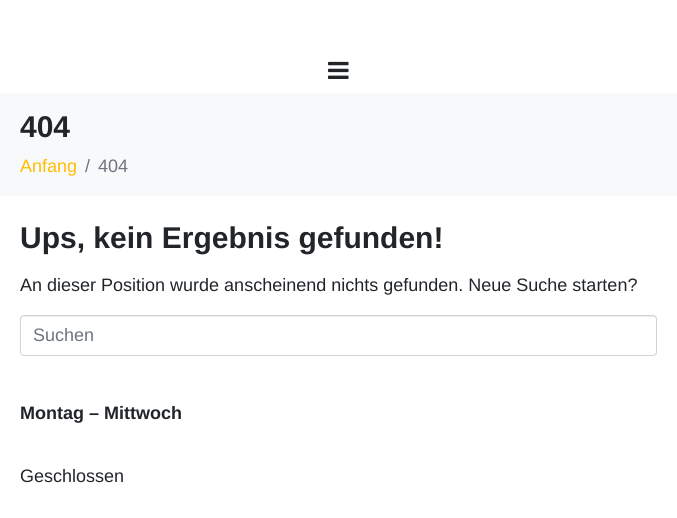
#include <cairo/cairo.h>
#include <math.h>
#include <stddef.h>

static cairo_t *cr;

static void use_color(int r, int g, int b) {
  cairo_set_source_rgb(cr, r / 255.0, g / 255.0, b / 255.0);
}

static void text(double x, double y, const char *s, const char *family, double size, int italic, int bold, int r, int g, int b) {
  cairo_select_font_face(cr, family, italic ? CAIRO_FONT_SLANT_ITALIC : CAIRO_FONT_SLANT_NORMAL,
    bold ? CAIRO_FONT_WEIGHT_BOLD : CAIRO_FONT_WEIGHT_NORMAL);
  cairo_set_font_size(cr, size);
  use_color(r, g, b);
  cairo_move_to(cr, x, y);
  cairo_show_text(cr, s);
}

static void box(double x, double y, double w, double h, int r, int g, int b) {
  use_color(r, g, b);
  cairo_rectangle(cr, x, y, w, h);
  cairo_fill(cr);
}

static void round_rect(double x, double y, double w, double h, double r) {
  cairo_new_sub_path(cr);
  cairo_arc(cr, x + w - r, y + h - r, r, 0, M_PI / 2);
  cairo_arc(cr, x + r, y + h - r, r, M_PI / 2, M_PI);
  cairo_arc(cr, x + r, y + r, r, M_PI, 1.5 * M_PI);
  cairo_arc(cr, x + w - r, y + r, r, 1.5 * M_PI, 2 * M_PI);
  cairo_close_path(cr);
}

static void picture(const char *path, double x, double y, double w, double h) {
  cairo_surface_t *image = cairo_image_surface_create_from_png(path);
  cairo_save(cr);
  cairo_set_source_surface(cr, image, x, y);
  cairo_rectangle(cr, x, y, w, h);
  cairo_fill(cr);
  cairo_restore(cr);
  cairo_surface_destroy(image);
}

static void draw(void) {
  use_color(255, 255, 255);
  cairo_paint(cr);
  picture("img_01.png", 328, 61, 21, 18);
  box(0, 93, 677, 103, 248, 249, 250);
  use_color(236, 236, 236);
  cairo_new_path(cr);
  cairo_move_to(cr, 24, 317);
  cairo_line_to(cr, 653, 317);
  cairo_curve_to(cr, 655, 317, 656, 318, 656, 320);
  cairo_line_to(cr, 656, 319);
  cairo_curve_to(cr, 656, 317, 655, 316, 653, 316);
  cairo_line_to(cr, 24, 316);
  cairo_curve_to(cr, 22, 316, 21, 317, 21, 319);
  cairo_line_to(cr, 21, 320);
  cairo_curve_to(cr, 21, 318, 22, 317, 24, 317);
  cairo_close_path(cr);
  cairo_fill(cr);
  round_rect(20.5, 315.5, 636, 40, 3.5);
  use_color(206, 212, 218);
  cairo_set_line_width(cr, 1);
  cairo_stroke(cr);
  text(20, 137, "404", "Liberation Sans", 30, 0, 1, 33, 37, 41);
  text(20, 172, "Anfang", "Liberation Sans", 18, 0, 0, 255, 188, 0);
  text(85, 172, "/", "Liberation Sans", 18, 0, 0, 108, 117, 125);
  text(98, 172, "404", "Liberation Sans", 18, 0, 0, 108, 117, 125);
  text(20, 248, "Ups, kein Ergebnis gefunden!", "Liberation Sans", 30, 0, 1, 33, 37, 41);
  text(20, 291, "An dieser Position wurde anscheinend nichts gefunden. Neue Suche starten?", "Liberation Sans", 18, 0, 0, 33, 37, 41);
  text(33, 341, "Suchen", "Liberation Sans", 18, 0, 0, 108, 117, 125);
  text(20, 419, "Montag – Mittwoch", "Liberation Sans", 18, 0, 1, 33, 37, 41);
  text(20, 482, "Geschlossen", "Liberation Sans", 18, 0, 0, 33, 37, 41);
}

int main(void) {
  cairo_surface_t *surface = cairo_image_surface_create(CAIRO_FORMAT_RGB24, 677, 518);
  cr = cairo_create(surface);
  cairo_font_options_t *options = cairo_font_options_create();
  cairo_font_options_set_hint_metrics(options, CAIRO_HINT_METRICS_OFF);
  cairo_font_options_set_hint_style(options, CAIRO_HINT_STYLE_NONE);
  cairo_set_font_options(cr, options);
  cairo_set_miter_limit(cr, 4);
  draw();
  cairo_surface_write_to_png(surface, "out.png");
  cairo_font_options_destroy(options);
  cairo_destroy(cr);
  cairo_surface_destroy(surface);
  return 0;
}
